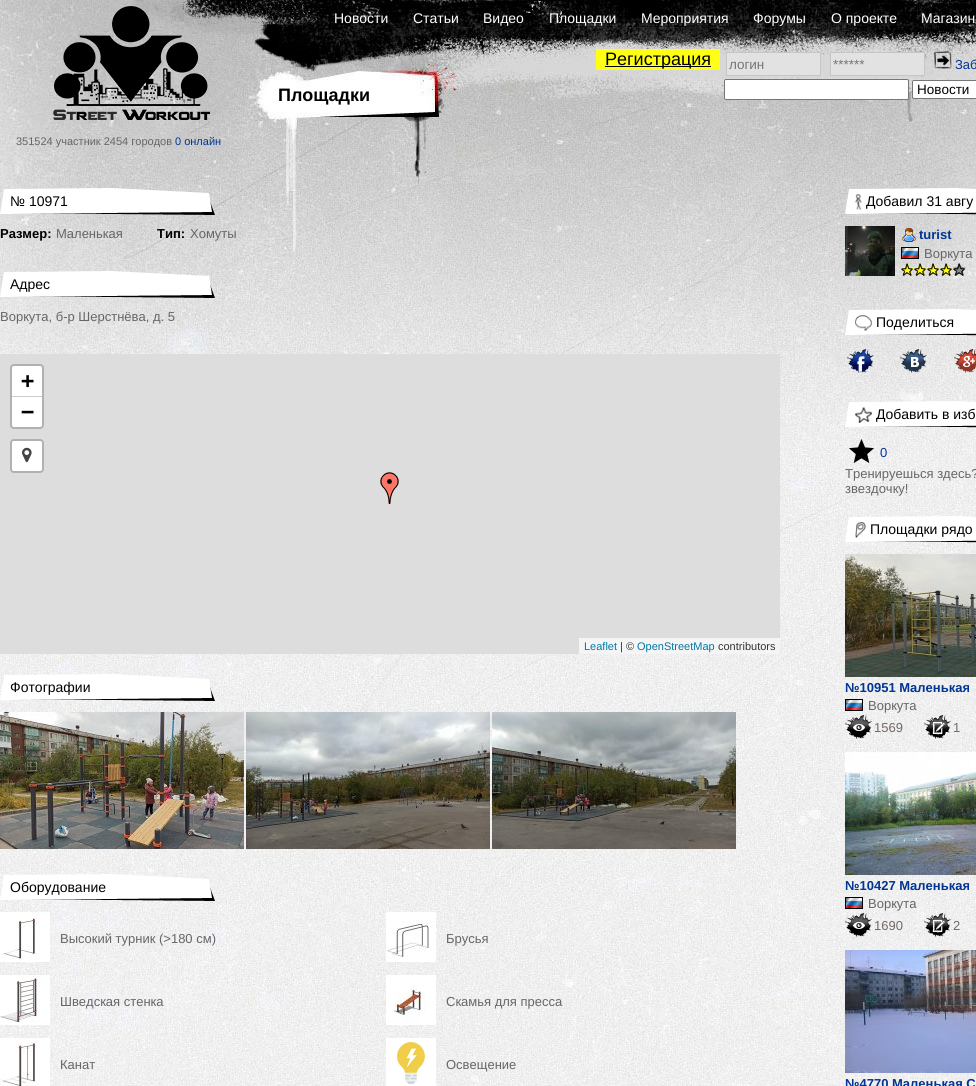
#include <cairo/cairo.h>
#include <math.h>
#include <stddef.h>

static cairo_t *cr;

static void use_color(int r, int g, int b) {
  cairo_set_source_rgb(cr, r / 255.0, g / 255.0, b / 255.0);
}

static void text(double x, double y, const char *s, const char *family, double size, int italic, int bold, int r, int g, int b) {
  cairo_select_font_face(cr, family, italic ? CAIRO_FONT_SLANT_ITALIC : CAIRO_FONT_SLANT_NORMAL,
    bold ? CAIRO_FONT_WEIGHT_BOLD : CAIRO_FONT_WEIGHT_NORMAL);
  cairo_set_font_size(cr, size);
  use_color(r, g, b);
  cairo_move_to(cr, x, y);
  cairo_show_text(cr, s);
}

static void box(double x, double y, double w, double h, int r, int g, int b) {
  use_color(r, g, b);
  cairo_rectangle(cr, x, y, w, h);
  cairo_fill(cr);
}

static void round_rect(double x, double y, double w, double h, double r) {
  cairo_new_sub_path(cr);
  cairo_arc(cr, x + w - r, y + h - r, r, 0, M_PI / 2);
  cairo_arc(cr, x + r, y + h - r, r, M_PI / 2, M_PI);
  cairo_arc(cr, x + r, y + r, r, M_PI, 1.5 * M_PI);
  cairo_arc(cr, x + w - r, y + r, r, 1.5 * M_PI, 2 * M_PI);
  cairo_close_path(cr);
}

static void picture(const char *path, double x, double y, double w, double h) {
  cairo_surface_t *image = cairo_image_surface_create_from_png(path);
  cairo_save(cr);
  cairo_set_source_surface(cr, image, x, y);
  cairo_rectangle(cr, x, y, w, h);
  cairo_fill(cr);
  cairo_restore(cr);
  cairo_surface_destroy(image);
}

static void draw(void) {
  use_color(255, 255, 255);
  cairo_paint(cr);
  picture("img_01.png", 0, 0, 976, 1086);
  box(596, 49, 124, 21, 255, 255, 22);
  box(605, 66, 106, 1, 0, 0, 0);
  use_color(226, 226, 226);
  cairo_rectangle(cr, 726.5, 52.5, 94, 23);
  cairo_fill_preserve(cr);
  use_color(198, 198, 198);
  cairo_set_line_width(cr, 1);
  cairo_stroke(cr);
  use_color(226, 226, 226);
  cairo_rectangle(cr, 830.5, 52.5, 94, 23);
  cairo_fill_preserve(cr);
  use_color(198, 198, 198);
  cairo_stroke(cr);
  picture("img_02.png", 934, 51, 18, 18);
  use_color(255, 255, 255);
  round_rect(724.5, 79.5, 184, 20, 1.5);
  cairo_fill_preserve(cr);
  use_color(118, 118, 118);
  cairo_stroke(cr);
  use_color(255, 255, 255);
  round_rect(912.5, 80.5, 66, 18, 1.5);
  cairo_fill_preserve(cr);
  use_color(118, 118, 118);
  cairo_stroke(cr);
  picture("img_03.png", 0, 188, 215, 27);
  picture("img_04.png", 0, 271, 215, 27);
  box(0, 354, 780, 300, 221, 221, 221);
  round_rect(11, 365, 32, 63, 3);
  use_color(177, 177, 177);
  cairo_set_line_width(cr, 2);
  cairo_stroke(cr);
  use_color(255, 255, 255);
  cairo_new_path(cr);
  cairo_move_to(cr, 14, 366);
  cairo_line_to(cr, 40, 366);
  cairo_curve_to(cr, 41, 366, 42, 367, 42, 368);
  cairo_line_to(cr, 42, 397);
  cairo_line_to(cr, 12, 397);
  cairo_line_to(cr, 12, 368);
  cairo_curve_to(cr, 12, 367, 13, 366, 14, 366);
  cairo_close_path(cr);
  cairo_fill(cr);
  box(12, 396, 30, 1, 204, 204, 204);
  use_color(255, 255, 255);
  cairo_new_path(cr);
  cairo_move_to(cr, 12, 397);
  cairo_line_to(cr, 42, 397);
  cairo_line_to(cr, 42, 425);
  cairo_curve_to(cr, 42, 426, 41, 427, 40, 427);
  cairo_line_to(cr, 14, 427);
  cairo_curve_to(cr, 13, 427, 12, 426, 12, 425);
  cairo_close_path(cr);
  cairo_fill(cr);
  round_rect(11, 440, 32, 32, 3);
  use_color(177, 177, 177);
  cairo_stroke(cr);
  use_color(255, 255, 255);
  round_rect(12, 441, 30, 30, 2);
  cairo_fill(cr);
  picture("img_05.png", 22, 447, 10, 16);
  box(579, 638, 201, 16, 245, 245, 245);
  picture("img_06.png", 380, 472, 19, 32);
  picture("img_07.png", 0, 674, 215, 27);
  picture("img_08.png", 0, 712, 244, 137);
  picture("img_09.png", 246, 712, 244, 137);
  picture("img_10.png", 492, 712, 244, 137);
  picture("img_11.png", 0, 874, 215, 27);
  picture("img_12.png", 0, 912, 50, 50);
  picture("img_13.png", 386, 912, 50, 50);
  picture("img_14.png", 0, 975, 50, 50);
  picture("img_15.png", 386, 975, 50, 50);
  picture("img_16.png", 0, 1038, 50, 48);
  picture("img_17.png", 386, 1038, 50, 48);
  picture("img_18.png", 845, 188, 131, 27);
  picture("img_19.png", 855, 194, 7, 16);
  picture("img_20.png", 845, 226, 50, 50);
  picture("img_21.png", 902, 228, 14, 14);
  picture("img_22.png", 901, 247, 18, 12);
  picture("img_23.png", 901, 263, 13, 13);
  picture("img_24.png", 914, 263, 13, 13);
  picture("img_25.png", 927, 263, 13, 13);
  picture("img_26.png", 940, 263, 13, 13);
  picture("img_27.png", 953, 263, 13, 13);
  picture("img_28.png", 845, 309, 131, 27);
  picture("img_29.png", 855, 315, 17, 16);
  picture("img_30.png", 847, 349, 27, 24);
  picture("img_31.png", 900, 349, 27, 24);
  picture("img_32.png", 954, 349, 22, 24);
  picture("img_33.png", 845, 401, 131, 27);
  picture("img_34.png", 855, 407, 17, 16);
  picture("img_35.png", 849, 439, 25, 24);
  picture("img_36.png", 845, 516, 131, 27);
  picture("img_37.png", 855, 522, 11, 16);
  picture("img_38.png", 845, 554, 131, 123);
  picture("img_22.png", 845, 699, 18, 12);
  picture("img_39.png", 845, 715, 27, 24);
  picture("img_40.png", 924, 715, 27, 24);
  picture("img_41.png", 845, 752, 131, 123);
  picture("img_22.png", 845, 897, 18, 12);
  picture("img_42.png", 845, 913, 27, 24);
  picture("img_43.png", 924, 913, 27, 24);
  picture("img_44.png", 845, 950, 131, 123);
  text(334, 23, "Новости", "Liberation Sans", 14, 0, 0, 255, 255, 255);
  text(413, 23, "Статьи", "Liberation Sans", 14, 0, 0, 255, 255, 255);
  text(483, 23, "Видео", "Liberation Sans", 14, 0, 0, 255, 255, 255);
  text(549, 23, "Площадки", "Liberation Sans", 14, 0, 0, 255, 255, 255);
  text(641, 23, "Мероприятия", "Liberation Sans", 14, 0, 0, 255, 255, 255);
  text(753, 23, "Форумы", "Liberation Sans", 14, 0, 0, 255, 255, 255);
  text(831, 23, "О проекте", "Liberation Sans", 14, 0, 0, 255, 255, 255);
  text(921, 23, "Магазин", "Liberation Sans", 14, 0, 0, 255, 255, 255);
  text(605, 65, "Регистрация", "Liberation Sans", 18, 0, 0, 0, 0, 0);
  text(729, 69, "логин", "Liberation Sans", 13.5, 0, 0, 117, 117, 117);
  text(833, 69, "******", "Liberation Sans", 13.5, 0, 0, 117, 117, 117);
  text(955, 69, "Заб", "Liberation Sans", 13, 0, 0, 0, 53, 146);
  text(278, 101, "Площадки", "Liberation Sans", 18, 0, 1, 0, 0, 0);
  text(917, 94, "Новости", "Liberation Sans", 13.5, 0, 0, 0, 0, 0);
  text(16, 145, "351524 участник 2454 городов", "Liberation Sans", 11, 0, 0, 102, 102, 102);
  text(175, 145, "0 онлайн", "Liberation Sans", 11, 0, 0, 0, 53, 146);
  text(10, 206, "№ 10971", "Liberation Sans", 14, 0, 0, 0, 0, 0);
  text(0, 238, "Размер:", "Liberation Sans", 13, 0, 1, 0, 0, 0);
  text(56, 238, "Маленькая", "Liberation Sans", 13, 0, 0, 102, 102, 102);
  text(157, 238, "Тип:", "Liberation Sans", 13, 0, 1, 0, 0, 0);
  text(190, 238, "Хомуты", "Liberation Sans", 13, 0, 0, 102, 102, 102);
  text(10, 289, "Адрес", "Liberation Sans", 14, 0, 0, 0, 0, 0);
  text(0, 321, "Воркута, б-р Шерстнёва, д. 5", "Liberation Sans", 13, 0, 0, 102, 102, 102);
  text(21, 388, "+", "DejaVu Sans Mono", 22, 0, 1, 0, 0, 0);
  text(21, 419, "−", "DejaVu Sans Mono", 22, 0, 1, 0, 0, 0);
  text(584, 650, "Leaflet", "Liberation Sans", 11, 0, 0, 0, 120, 168);
  text(620, 650, "| ©", "Liberation Sans", 11, 0, 0, 51, 51, 51);
  text(637, 650, "OpenStreetMap", "Liberation Sans", 11, 0, 0, 0, 120, 168);
  text(718, 650, "contributors", "Liberation Sans", 11, 0, 0, 51, 51, 51);
  text(10, 692, "Фотографии", "Liberation Sans", 14, 0, 0, 0, 0, 0);
  text(10, 892, "Оборудование", "Liberation Sans", 14, 0, 0, 0, 0, 0);
  text(60, 943, "Высокий турник (>180 см)", "Liberation Sans", 13, 0, 0, 102, 102, 102);
  text(446, 943, "Брусья", "Liberation Sans", 13, 0, 0, 102, 102, 102);
  text(60, 1006, "Шведская стенка", "Liberation Sans", 13, 0, 0, 102, 102, 102);
  text(446, 1006, "Скамья для пресса", "Liberation Sans", 13, 0, 0, 102, 102, 102);
  text(60, 1069, "Канат", "Liberation Sans", 13, 0, 0, 102, 102, 102);
  text(446, 1069, "Освещение", "Liberation Sans", 13, 0, 0, 102, 102, 102);
  text(866, 206, "Добавил 31 авгу", "Liberation Sans", 14, 0, 0, 0, 0, 0);
  text(919, 239, "turist", "Liberation Sans", 13, 0, 1, 0, 53, 146);
  text(924, 258, "Воркута", "Liberation Sans", 13, 0, 0, 102, 102, 102);
  text(876, 327, "Поделиться", "Liberation Sans", 14, 0, 0, 0, 0, 0);
  text(876, 419, "Добавить в изб", "Liberation Sans", 14, 0, 0, 0, 0, 0);
  text(880, 457, "0", "Liberation Sans", 13, 0, 0, 0, 53, 146);
  text(845, 478, "Тренируешься здесь?", "Liberation Sans", 13, 0, 0, 102, 102, 102);
  text(845, 493, "звездочку!", "Liberation Sans", 13, 0, 0, 102, 102, 102);
  text(870, 534, "Площадки рядо", "Liberation Sans", 14, 0, 0, 0, 0, 0);
  text(845, 692, "№10951 Маленькая", "Liberation Sans", 13, 0, 1, 0, 53, 146);
  text(868, 710, "Воркута", "Liberation Sans", 13, 0, 0, 102, 102, 102);
  text(874, 732, "1569", "Liberation Sans", 13, 0, 0, 115, 104, 102);
  text(953, 732, "1", "Liberation Sans", 13, 0, 0, 115, 104, 102);
  text(845, 890, "№10427 Маленькая", "Liberation Sans", 13, 0, 1, 0, 53, 146);
  text(868, 908, "Воркута", "Liberation Sans", 13, 0, 0, 102, 102, 102);
  text(874, 930, "1690", "Liberation Sans", 13, 0, 0, 115, 104, 102);
  text(953, 930, "2", "Liberation Sans", 13, 0, 0, 115, 104, 102);
  text(845, 1088, "№4770 Маленькая С", "Liberation Sans", 13, 0, 1, 0, 53, 146);
}

int main(void) {
  cairo_surface_t *surface = cairo_image_surface_create(CAIRO_FORMAT_RGB24, 976, 1086);
  cr = cairo_create(surface);
  cairo_font_options_t *options = cairo_font_options_create();
  cairo_font_options_set_hint_metrics(options, CAIRO_HINT_METRICS_OFF);
  cairo_font_options_set_hint_style(options, CAIRO_HINT_STYLE_NONE);
  cairo_set_font_options(cr, options);
  cairo_set_miter_limit(cr, 4);
  draw();
  cairo_surface_write_to_png(surface, "out.png");
  cairo_font_options_destroy(options);
  cairo_destroy(cr);
  cairo_surface_destroy(surface);
  return 0;
}
